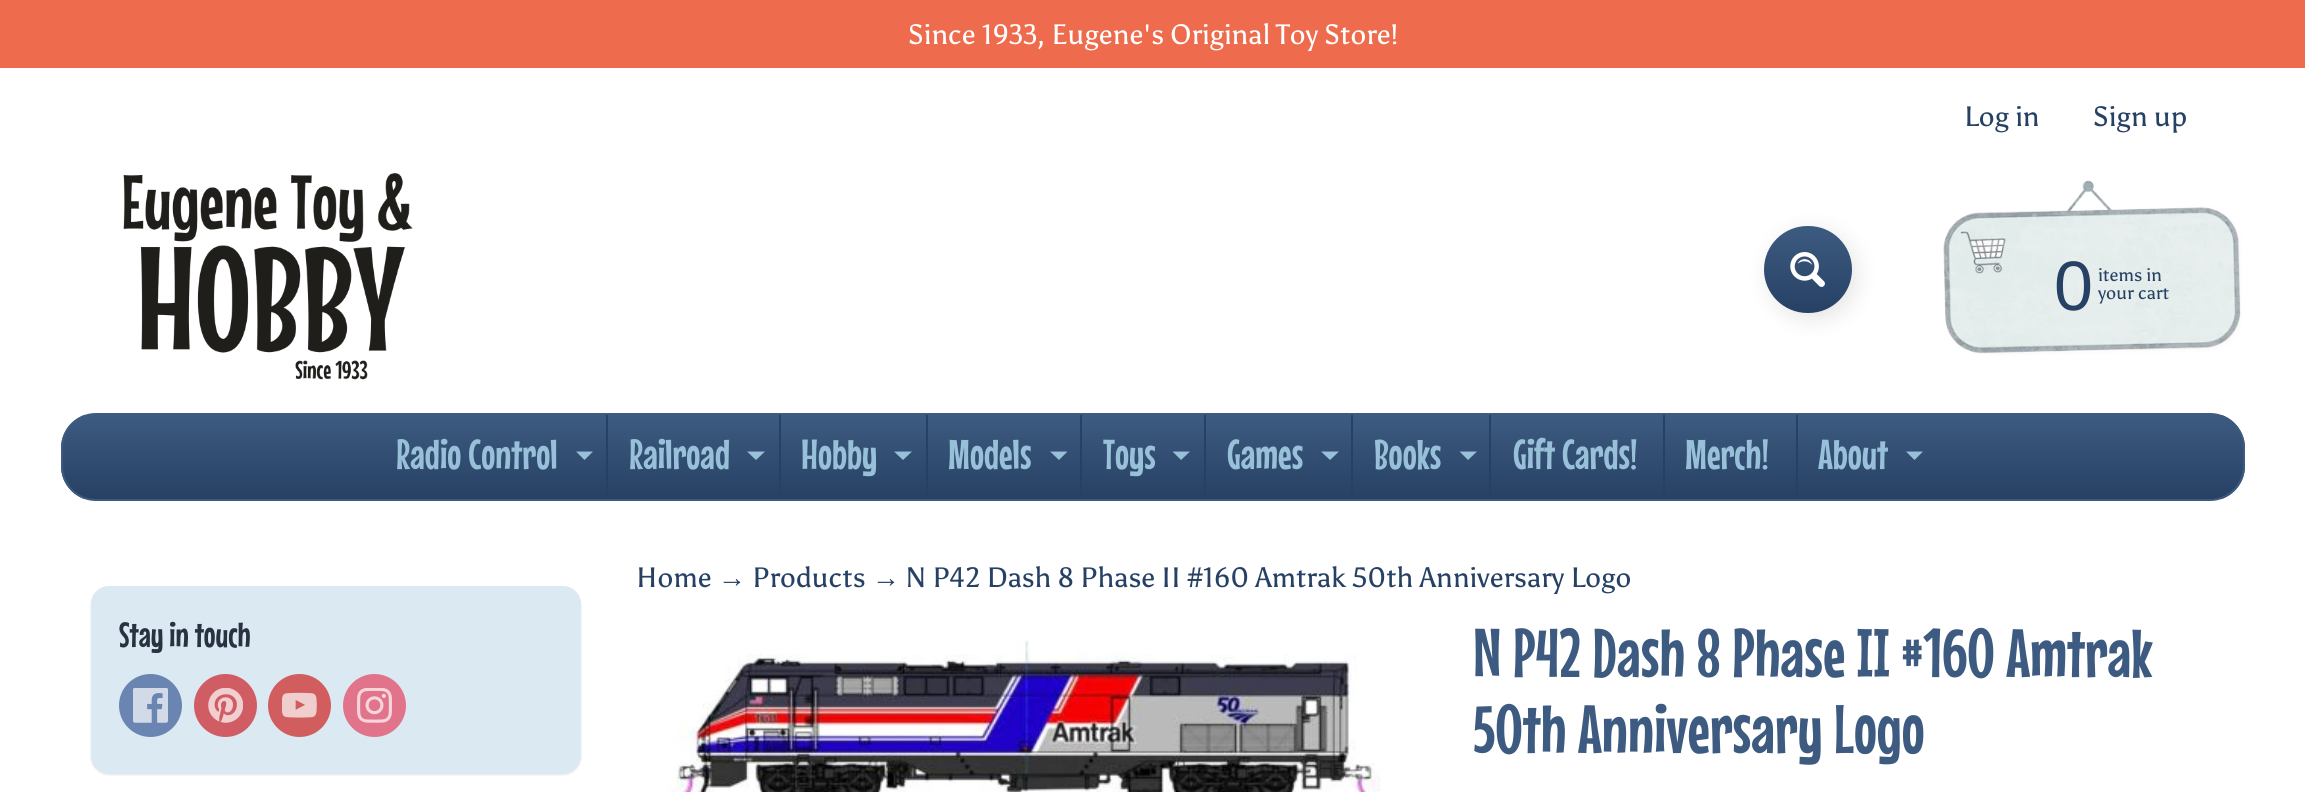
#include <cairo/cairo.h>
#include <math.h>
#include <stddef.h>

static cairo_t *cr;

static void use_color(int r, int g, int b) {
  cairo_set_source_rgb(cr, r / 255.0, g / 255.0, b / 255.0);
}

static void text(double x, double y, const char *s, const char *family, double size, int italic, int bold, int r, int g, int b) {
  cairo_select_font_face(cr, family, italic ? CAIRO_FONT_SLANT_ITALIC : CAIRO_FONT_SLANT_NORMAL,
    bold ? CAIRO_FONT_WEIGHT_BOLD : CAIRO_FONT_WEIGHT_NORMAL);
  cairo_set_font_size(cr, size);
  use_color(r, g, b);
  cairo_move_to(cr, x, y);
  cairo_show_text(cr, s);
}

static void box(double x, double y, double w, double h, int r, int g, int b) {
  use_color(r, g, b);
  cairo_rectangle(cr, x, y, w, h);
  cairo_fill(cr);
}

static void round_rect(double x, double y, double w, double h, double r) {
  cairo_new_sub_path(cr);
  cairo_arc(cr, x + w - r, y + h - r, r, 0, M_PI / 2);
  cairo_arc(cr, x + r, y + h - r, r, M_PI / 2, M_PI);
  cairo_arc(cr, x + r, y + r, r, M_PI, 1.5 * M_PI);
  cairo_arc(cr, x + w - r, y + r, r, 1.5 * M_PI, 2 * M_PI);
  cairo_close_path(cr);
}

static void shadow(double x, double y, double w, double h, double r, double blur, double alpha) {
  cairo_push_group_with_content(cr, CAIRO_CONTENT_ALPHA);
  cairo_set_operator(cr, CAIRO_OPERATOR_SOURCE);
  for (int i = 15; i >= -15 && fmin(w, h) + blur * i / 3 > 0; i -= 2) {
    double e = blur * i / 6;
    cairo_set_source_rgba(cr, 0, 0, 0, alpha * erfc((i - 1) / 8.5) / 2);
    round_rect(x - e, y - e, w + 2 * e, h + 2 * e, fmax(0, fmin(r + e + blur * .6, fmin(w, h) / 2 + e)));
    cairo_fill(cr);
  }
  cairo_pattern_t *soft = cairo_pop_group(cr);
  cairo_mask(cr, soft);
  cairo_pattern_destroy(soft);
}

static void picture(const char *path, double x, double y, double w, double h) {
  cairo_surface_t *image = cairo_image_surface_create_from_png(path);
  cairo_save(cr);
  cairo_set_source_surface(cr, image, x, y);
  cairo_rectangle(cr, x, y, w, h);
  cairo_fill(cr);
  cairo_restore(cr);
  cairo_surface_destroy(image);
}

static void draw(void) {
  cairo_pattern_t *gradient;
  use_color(255, 255, 255);
  cairo_paint(cr);
  box(0, 0, 2305, 68, 238, 108, 77);
  picture("img_01.png", 123, 173, 290, 207);
  use_color(0, 0, 0);
  shadow(1769, 231, 88, 88, 44, 10.5, 0.1);
  gradient = cairo_pattern_create_linear(1808, 226, 1808, 313);
  cairo_pattern_add_color_stop_rgba(gradient, 0, 0.239, 0.353, 0.502, 1);
  cairo_pattern_add_color_stop_rgba(gradient, 1, 0.149, 0.255, 0.392, 1);
  cairo_set_source(cr, gradient);
  cairo_pattern_destroy(gradient);
  round_rect(1764, 226, 88, 87, 43.5);
  cairo_fill(cr);
  picture("img_02.png", 1790, 252, 35, 35);
  picture("img_03.png", 1943, 180, 299, 175);
  cairo_save(cr);
  round_rect(61, 413, 2184, 88, 35);
  cairo_clip(cr);
  gradient = cairo_pattern_create_linear(1153, 415, 1153, 499);
  cairo_pattern_add_color_stop_rgba(gradient, 0, 0.239, 0.353, 0.502, 1);
  cairo_pattern_add_color_stop_rgba(gradient, 1, 0.149, 0.255, 0.392, 1);
  cairo_set_source(cr, gradient);
  cairo_pattern_destroy(gradient);
  cairo_rectangle(cr, 61, 415, 2184, 84);
  cairo_fill(cr);
  cairo_restore(cr);
  round_rect(62, 414, 2182, 86, 34);
  use_color(61, 90, 128);
  cairo_stroke(cr);
  use_color(152, 193, 217);
  cairo_new_path(cr);
  cairo_move_to(cr, 576, 451.5);
  cairo_line_to(cr, 593, 451.5);
  cairo_line_to(cr, 584.5, 460);
  cairo_close_path(cr);
  cairo_fill(cr);
  box(606, 415, 2, 84, 38, 65, 100);
  use_color(152, 193, 217);
  cairo_new_path(cr);
  cairo_move_to(cr, 747, 451.5);
  cairo_line_to(cr, 765, 451.5);
  cairo_line_to(cr, 756, 460);
  cairo_close_path(cr);
  cairo_fill(cr);
  box(779, 415, 2, 84, 38, 65, 100);
  use_color(152, 193, 217);
  cairo_new_path(cr);
  cairo_move_to(cr, 894, 451.5);
  cairo_line_to(cr, 912, 451.5);
  cairo_line_to(cr, 903, 460);
  cairo_close_path(cr);
  cairo_fill(cr);
  box(926, 415, 2, 84, 38, 65, 100);
  use_color(152, 193, 217);
  cairo_new_path(cr);
  cairo_move_to(cr, 1050, 451.5);
  cairo_line_to(cr, 1067.5, 451.5);
  cairo_line_to(cr, 1059, 460);
  cairo_close_path(cr);
  cairo_fill(cr);
  box(1080, 415, 2, 84, 38, 65, 100);
  use_color(152, 193, 217);
  cairo_new_path(cr);
  cairo_move_to(cr, 1172.5, 451.5);
  cairo_line_to(cr, 1190, 451.5);
  cairo_line_to(cr, 1181, 460);
  cairo_close_path(cr);
  cairo_fill(cr);
  box(1204, 415, 2, 84, 38, 65, 100);
  use_color(152, 193, 217);
  cairo_new_path(cr);
  cairo_move_to(cr, 1321, 451.5);
  cairo_line_to(cr, 1339, 451.5);
  cairo_line_to(cr, 1330, 460);
  cairo_close_path(cr);
  cairo_fill(cr);
  box(1351, 415, 2, 84, 38, 65, 100);
  use_color(152, 193, 217);
  cairo_new_path(cr);
  cairo_move_to(cr, 1459.5, 451.5);
  cairo_line_to(cr, 1477, 451.5);
  cairo_line_to(cr, 1468, 460);
  cairo_close_path(cr);
  cairo_fill(cr);
  box(1489, 415, 2, 84, 38, 65, 100);
  box(1663, 415, 2, 84, 38, 65, 100);
  box(1796, 415, 2, 84, 38, 65, 100);
  use_color(152, 193, 217);
  cairo_new_path(cr);
  cairo_move_to(cr, 1906, 451.5);
  cairo_line_to(cr, 1923, 451.5);
  cairo_line_to(cr, 1914.5, 460);
  cairo_close_path(cr);
  cairo_fill(cr);
  use_color(0, 0, 0);
  shadow(91, 588, 490, 187, 18, 1, 0.1);
  use_color(219, 234, 242);
  round_rect(91, 586, 490, 188, 18);
  cairo_fill(cr);
  use_color(107, 133, 179);
  cairo_arc(cr, 150.5, 705.5, 31.5, 0, 2 * M_PI);
  cairo_fill(cr);
  picture("img_04.png", 133, 688, 35, 35);
  use_color(208, 93, 100);
  cairo_arc(cr, 225.5, 705.5, 31.5, 0, 2 * M_PI);
  cairo_fill(cr);
  picture("img_05.png", 208, 688, 35, 35);
  use_color(209, 93, 94);
  cairo_arc(cr, 299.5, 705.5, 31.5, 0, 2 * M_PI);
  cairo_fill(cr);
  picture("img_06.png", 282, 692, 35, 26);
  use_color(225, 115, 139);
  cairo_arc(cr, 374.5, 705.5, 31.5, 0, 2 * M_PI);
  cairo_fill(cr);
  picture("img_07.png", 357, 688, 35, 35);
  picture("img_08.png", 665, 639, 716, 153);
  text(908, 44, "Since 1933, Eugene's Original Toy Store!", "Asul", 28, 0, 0, 255, 255, 255);
  text(1964, 126, "Log in", "Asul", 28, 0, 0, 38, 65, 100);
  text(2093, 126, "Sign up", "Asul", 28, 0, 0, 38, 65, 100);
  text(2054, 310, "0", "Liberation Sans", 70, 0, 0, 38, 65, 100);
  text(2098, 281, "items in", "Asul", 18, 0, 0, 38, 65, 100);
  text(2098, 299, "your cart", "Asul", 18, 0, 0, 38, 65, 100);
  text(396, 469, "Radio Control", "Mouse Memoirs", 42, 0, 0, 152, 193, 217);
  text(629, 469, "Railroad", "Mouse Memoirs", 42, 0, 0, 152, 193, 217);
  text(801, 469, "Hobby", "Mouse Memoirs", 42, 0, 0, 152, 193, 217);
  text(948, 469, "Models", "Mouse Memoirs", 42, 0, 0, 152, 193, 217);
  text(1103, 469, "Toys", "Mouse Memoirs", 42, 0, 0, 152, 193, 217);
  text(1227, 469, "Games", "Mouse Memoirs", 42, 0, 0, 152, 193, 217);
  text(1374, 469, "Books", "Mouse Memoirs", 42, 0, 0, 152, 193, 217);
  text(1513, 469, "Gift Cards!", "Mouse Memoirs", 42, 0, 0, 152, 193, 217);
  text(1685, 469, "Merch!", "Mouse Memoirs", 42, 0, 0, 152, 193, 217);
  text(1818, 469, "About", "Mouse Memoirs", 42, 0, 0, 152, 193, 217);
  text(119, 647, "Stay in touch", "Mouse Memoirs", 35, 0, 0, 41, 50, 65);
  text(636, 587, "Home", "Asul", 28, 0, 0, 38, 65, 100);
  text(718, 587, "→", "Liberation Serif", 28, 0, 0, 38, 65, 100);
  text(752, 587, "Products", "Asul", 28, 0, 0, 38, 65, 100);
  text(872, 587, "→", "Liberation Serif", 28, 0, 0, 38, 65, 100);
  text(906, 587, "N P42 Dash 8 Phase II #160 Amtrak 50th Anniversary Logo", "Asul", 28, 0, 0, 38, 65, 100);
  text(1473, 677, "N P42 Dash 8 Phase II #160 Amtrak", "Mouse Memoirs", 68.4, 0, 0, 61, 90, 128);
  text(1473, 753, "50th Anniversary Logo", "Mouse Memoirs", 68.4, 0, 0, 61, 90, 128);
}

int main(void) {
  cairo_surface_t *surface = cairo_image_surface_create(CAIRO_FORMAT_RGB24, 2305, 792);
  cr = cairo_create(surface);
  cairo_font_options_t *options = cairo_font_options_create();
  cairo_font_options_set_hint_metrics(options, CAIRO_HINT_METRICS_OFF);
  cairo_font_options_set_hint_style(options, CAIRO_HINT_STYLE_NONE);
  cairo_set_font_options(cr, options);
  cairo_set_miter_limit(cr, 4);
  draw();
  cairo_surface_write_to_png(surface, "out.png");
  cairo_font_options_destroy(options);
  cairo_destroy(cr);
  cairo_surface_destroy(surface);
  return 0;
}
